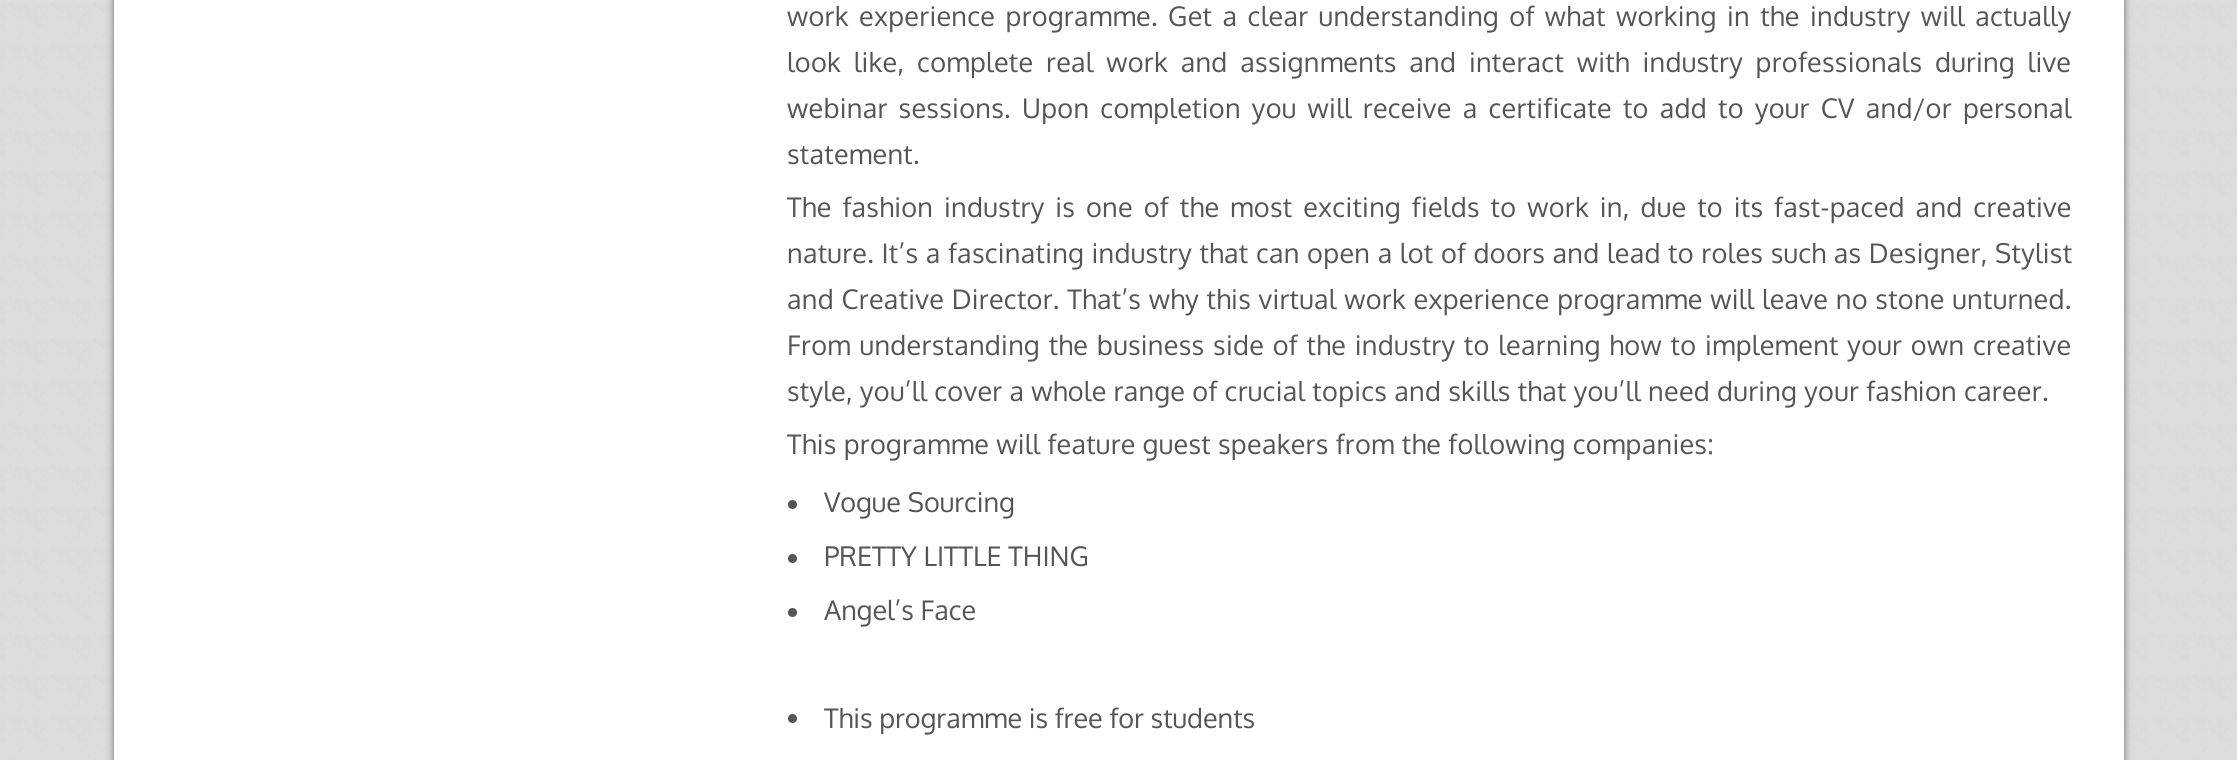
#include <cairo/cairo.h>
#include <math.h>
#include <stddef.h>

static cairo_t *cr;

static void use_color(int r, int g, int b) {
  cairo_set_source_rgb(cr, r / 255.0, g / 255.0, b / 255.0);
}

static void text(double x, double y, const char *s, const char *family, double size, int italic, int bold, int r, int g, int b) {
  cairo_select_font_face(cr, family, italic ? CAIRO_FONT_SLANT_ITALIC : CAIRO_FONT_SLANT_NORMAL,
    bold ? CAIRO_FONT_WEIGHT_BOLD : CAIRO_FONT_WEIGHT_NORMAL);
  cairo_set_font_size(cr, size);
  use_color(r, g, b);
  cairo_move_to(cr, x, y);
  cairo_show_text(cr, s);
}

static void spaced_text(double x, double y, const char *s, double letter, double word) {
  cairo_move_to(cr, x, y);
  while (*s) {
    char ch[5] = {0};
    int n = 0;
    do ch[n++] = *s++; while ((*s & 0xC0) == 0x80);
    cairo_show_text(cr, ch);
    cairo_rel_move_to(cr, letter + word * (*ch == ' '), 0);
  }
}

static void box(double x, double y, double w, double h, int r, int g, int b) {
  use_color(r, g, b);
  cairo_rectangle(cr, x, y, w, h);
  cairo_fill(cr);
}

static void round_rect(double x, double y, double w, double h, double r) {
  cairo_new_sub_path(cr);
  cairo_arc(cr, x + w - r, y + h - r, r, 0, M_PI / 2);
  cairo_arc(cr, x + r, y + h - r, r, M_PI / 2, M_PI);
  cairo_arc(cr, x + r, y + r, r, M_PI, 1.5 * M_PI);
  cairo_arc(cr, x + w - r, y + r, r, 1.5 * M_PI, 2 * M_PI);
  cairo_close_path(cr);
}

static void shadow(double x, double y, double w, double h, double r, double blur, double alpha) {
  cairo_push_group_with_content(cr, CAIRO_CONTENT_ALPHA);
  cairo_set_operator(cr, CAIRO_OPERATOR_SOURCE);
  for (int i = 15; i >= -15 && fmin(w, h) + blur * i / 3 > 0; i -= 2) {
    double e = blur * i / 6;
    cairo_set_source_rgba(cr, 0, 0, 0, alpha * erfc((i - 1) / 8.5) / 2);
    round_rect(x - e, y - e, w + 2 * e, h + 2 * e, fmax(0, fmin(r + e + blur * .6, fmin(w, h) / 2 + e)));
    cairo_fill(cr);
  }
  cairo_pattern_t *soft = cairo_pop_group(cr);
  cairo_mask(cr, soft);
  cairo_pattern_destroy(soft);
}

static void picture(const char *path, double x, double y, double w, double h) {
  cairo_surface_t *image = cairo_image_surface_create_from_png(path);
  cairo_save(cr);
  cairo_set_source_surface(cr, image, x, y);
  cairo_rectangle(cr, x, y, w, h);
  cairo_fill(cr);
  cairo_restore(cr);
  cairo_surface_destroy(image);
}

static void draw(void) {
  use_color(255, 255, 255);
  cairo_paint(cr);
  picture("img_01.png", 0, 0, 2237, 760);
  use_color(0, 0, 0);
  shadow(114, -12, 2010, 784, 0, 4, 0.5);
  box(114, 0, 2010, 760, 255, 255, 255);
  use_color(85, 85, 85);
  cairo_arc(cr, 792.5, 504.5, 4.5, 0, 2 * M_PI);
  cairo_fill(cr);
  cairo_arc(cr, 792.5, 558.5, 4.5, 0, 2 * M_PI);
  cairo_fill(cr);
  cairo_arc(cr, 792.5, 612.5, 4.5, 0, 2 * M_PI);
  cairo_fill(cr);
  cairo_arc(cr, 792.5, 718.5, 4.5, 0, 2 * M_PI);
  cairo_fill(cr);
  cairo_select_font_face(cr, "Oxygen", CAIRO_FONT_SLANT_NORMAL, CAIRO_FONT_WEIGHT_NORMAL);
  cairo_set_font_size(cr, 27);
  spaced_text(787, 26, "work experience programme. Get a clear understanding of what working in the industry will actually", 0.3, 3.25);
  spaced_text(787, 72, "look like, complete real work and assignments and interact with industry professionals during live", 0.3, 5.6);
  spaced_text(787, 118, "webinar sessions. Upon completion you will receive a certificate to add to your CV and/or personal", 0.3, 4);
  spaced_text(787, 164, "statement.", 0.3, 0);
  spaced_text(787, 217, "The fashion industry is one of the most exciting fields to work in, due to its fast-paced and creative", 0.3, 3.75);
  spaced_text(787, 263, "nature. It’s a fascinating industry that can open a lot of doors and lead to roles such as Designer, Stylist", 0.3, 0.4);
  spaced_text(787, 309, "and Creative Director. That’s why this virtual work experience programme will leave no stone unturned.", 0.3, 0.5);
  spaced_text(787, 355, "From understanding the business side of the industry to learning how to implement your own creative", 0.3, 1.6);
  spaced_text(787, 401, "style, you’ll cover a whole range of crucial topics and skills that you’ll need during your fashion career.", 0.3, 0);
  spaced_text(787, 454, "This programme will feature guest speakers from the following companies:", 0.3, 0);
  text(824, 512, "Vogue Sourcing", "Oxygen", 27, 0, 0, 85, 85, 85);
  text(824, 566, "PRETTY LITTLE THING", "Oxygen", 27, 0, 0, 85, 85, 85);
  text(824, 620, "Angel’s Face", "Oxygen", 27, 0, 0, 85, 85, 85);
  text(824, 728, "This programme is free for students", "Oxygen", 27, 0, 0, 85, 85, 85);
}

int main(void) {
  cairo_surface_t *surface = cairo_image_surface_create(CAIRO_FORMAT_RGB24, 2237, 760);
  cr = cairo_create(surface);
  cairo_font_options_t *options = cairo_font_options_create();
  cairo_font_options_set_hint_metrics(options, CAIRO_HINT_METRICS_OFF);
  cairo_font_options_set_hint_style(options, CAIRO_HINT_STYLE_NONE);
  cairo_set_font_options(cr, options);
  cairo_set_miter_limit(cr, 4);
  draw();
  cairo_surface_write_to_png(surface, "out.png");
  cairo_font_options_destroy(options);
  cairo_destroy(cr);
  cairo_surface_destroy(surface);
  return 0;
}
